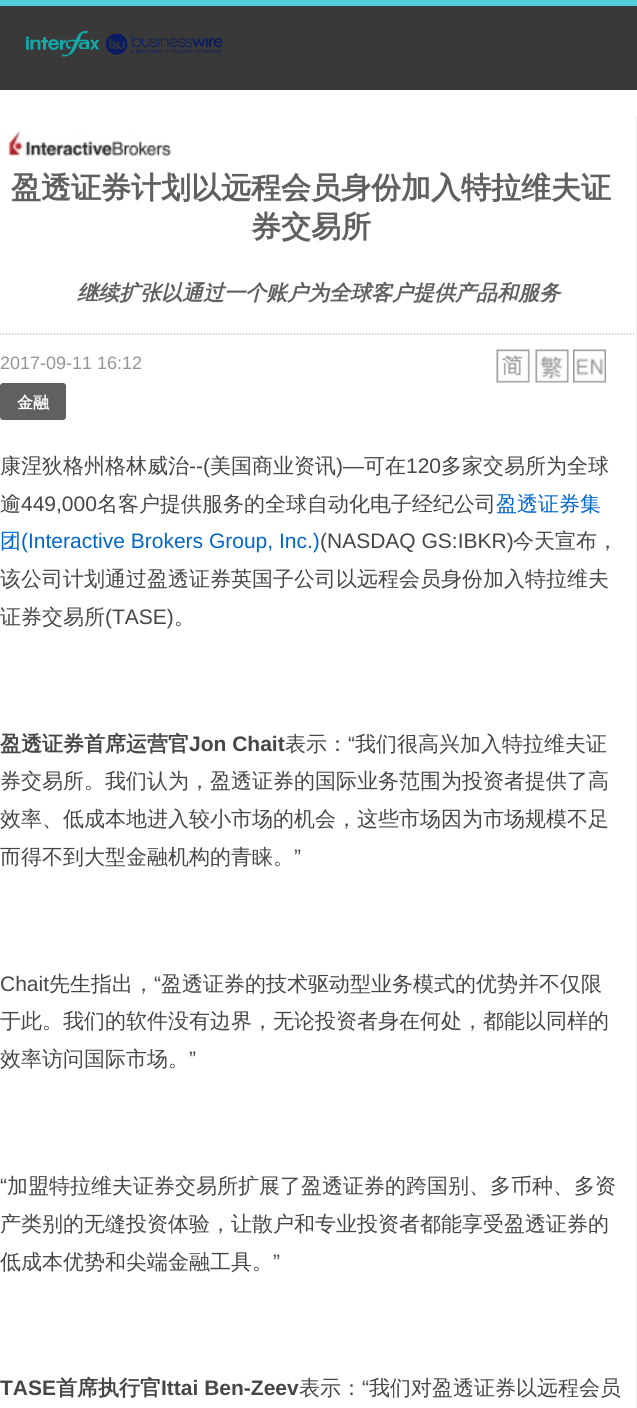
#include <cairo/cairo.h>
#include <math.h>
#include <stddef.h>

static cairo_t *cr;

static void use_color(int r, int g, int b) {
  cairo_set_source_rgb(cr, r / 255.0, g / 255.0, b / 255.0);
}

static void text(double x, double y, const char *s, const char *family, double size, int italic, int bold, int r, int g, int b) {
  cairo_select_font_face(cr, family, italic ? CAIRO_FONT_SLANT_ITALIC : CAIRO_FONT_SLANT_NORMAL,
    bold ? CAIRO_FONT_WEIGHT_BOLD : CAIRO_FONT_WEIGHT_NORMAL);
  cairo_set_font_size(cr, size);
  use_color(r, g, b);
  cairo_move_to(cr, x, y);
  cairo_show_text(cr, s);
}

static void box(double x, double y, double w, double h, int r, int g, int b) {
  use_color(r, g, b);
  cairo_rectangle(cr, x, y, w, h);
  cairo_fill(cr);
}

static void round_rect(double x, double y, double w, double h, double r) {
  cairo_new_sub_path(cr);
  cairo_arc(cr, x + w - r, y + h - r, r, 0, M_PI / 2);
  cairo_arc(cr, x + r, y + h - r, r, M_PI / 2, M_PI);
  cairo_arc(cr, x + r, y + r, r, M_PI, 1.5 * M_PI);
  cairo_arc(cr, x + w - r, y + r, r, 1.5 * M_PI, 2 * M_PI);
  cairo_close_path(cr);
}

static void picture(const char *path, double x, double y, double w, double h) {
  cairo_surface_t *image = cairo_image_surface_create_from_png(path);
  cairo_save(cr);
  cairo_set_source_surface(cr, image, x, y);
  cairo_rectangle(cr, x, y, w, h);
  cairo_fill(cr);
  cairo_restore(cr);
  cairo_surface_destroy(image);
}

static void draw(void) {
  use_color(255, 255, 255);
  cairo_paint(cr);
  box(0, 6, 637, 84, 57, 57, 57);
  box(0, 0, 637, 6, 83, 205, 219);
  picture("img_01.png", 26, 31, 197, 26);
  box(636, 116, 1, 1292, 239, 239, 239);
  picture("img_02.png", 7, 130, 165, 26);
  cairo_new_path(cr);
  cairo_move_to(cr, 0, 334);
  cairo_line_to(cr, 636, 334);
  use_color(204, 204, 204);
  cairo_set_line_width(cr, 1.5);
  cairo_set_dash(cr, (double[]){1.5, 1.5}, 2, 0);
  cairo_stroke(cr);
  picture("img_03.png", 496, 349, 34, 34);
  picture("img_04.png", 535, 349, 34, 34);
  picture("img_05.png", 573, 349, 33, 34);
  use_color(96, 96, 96);
  round_rect(0, 383, 66, 37, 3);
  cairo_fill(cr);
  text(11, 198, "盈透证券计划以远程会员身份加入特拉维夫证", "WenQuanYi Zen Hei", 30, 0, 1, 96, 96, 96);
  text(251, 237, "券交易所", "WenQuanYi Zen Hei", 30, 0, 1, 96, 96, 96);
  text(77, 300, "继续扩张以通过一个账户为全球客户提供产品和服务", "WenQuanYi Zen Hei", 21, 1, 1, 96, 96, 96);
  text(0, 369, "2017-09-11 16:12", "Liberation Sans", 18, 0, 0, 148, 148, 148);
  text(17, 408, "金融", "WenQuanYi Zen Hei", 16, 0, 1, 255, 255, 255);
  text(0, 473, "康涅狄格州格林威治", "WenQuanYi Zen Hei Medium", 21, 0, 0, 70, 70, 70);
  text(189, 473, "--(", "Liberation Sans", 21, 0, 0, 70, 70, 70);
  text(210, 473, "美国商业资讯", "WenQuanYi Zen Hei Medium", 21, 0, 0, 70, 70, 70);
  text(336, 473, ")—", "Liberation Sans", 21, 0, 0, 70, 70, 70);
  text(364, 473, "可在", "WenQuanYi Zen Hei Medium", 21, 0, 0, 70, 70, 70);
  text(406, 473, "120", "Liberation Sans", 21, 0, 0, 70, 70, 70);
  text(441, 473, "多家交易所为全球", "WenQuanYi Zen Hei Medium", 21, 0, 0, 70, 70, 70);
  text(0, 511, "逾", "WenQuanYi Zen Hei Medium", 21, 0, 0, 70, 70, 70);
  text(21, 511, "449,000", "Liberation Sans", 21, 0, 0, 70, 70, 70);
  text(97, 511, "名客户提供服务的全球自动化电子经纪公司", "WenQuanYi Zen Hei Medium", 21, 0, 0, 70, 70, 70);
  text(496, 511, "盈透证券集", "WenQuanYi Zen Hei Medium", 21, 0, 0, 0, 102, 204);
  text(0, 548, "团", "WenQuanYi Zen Hei Medium", 21, 0, 0, 0, 102, 204);
  text(21, 548, "(Interactive Brokers Group, Inc.)", "Liberation Sans", 21, 0, 0, 0, 102, 204);
  text(320, 548, "(NASDAQ GS:IBKR)", "Liberation Sans", 21, 0, 0, 70, 70, 70);
  text(513, 548, "今天宣布，", "WenQuanYi Zen Hei Medium", 21, 0, 0, 70, 70, 70);
  text(0, 586, "该公司计划通过盈透证券英国子公司以远程会员身份加入特拉维夫", "WenQuanYi Zen Hei Medium", 21, 0, 0, 70, 70, 70);
  text(0, 624, "证券交易所", "WenQuanYi Zen Hei Medium", 21, 0, 0, 70, 70, 70);
  text(105, 624, "(TASE)", "Liberation Sans", 21, 0, 0, 70, 70, 70);
  text(174, 624, "。", "WenQuanYi Zen Hei Medium", 21, 0, 0, 70, 70, 70);
  text(0, 751, "盈透证券首席运营官", "WenQuanYi Zen Hei", 21, 0, 1, 70, 70, 70);
  text(189, 751, "Jon Chait", "Liberation Sans", 21, 0, 1, 70, 70, 70);
  text(285, 751, "表示：", "WenQuanYi Zen Hei Medium", 21, 0, 0, 70, 70, 70);
  text(348, 751, "“", "Liberation Sans", 21, 0, 0, 70, 70, 70);
  text(355, 751, "我们很高兴加入特拉维夫证", "WenQuanYi Zen Hei Medium", 21, 0, 0, 70, 70, 70);
  text(0, 788, "券交易所。我们认为，盈透证券的国际业务范围为投资者提供了高", "WenQuanYi Zen Hei Medium", 21, 0, 0, 70, 70, 70);
  text(0, 826, "效率、低成本地进入较小市场的机会，这些市场因为市场规模不足", "WenQuanYi Zen Hei Medium", 21, 0, 0, 70, 70, 70);
  text(0, 864, "而得不到大型金融机构的青睐。", "WenQuanYi Zen Hei Medium", 21, 0, 0, 70, 70, 70);
  text(294, 864, "”", "Liberation Sans", 21, 0, 0, 70, 70, 70);
  text(0, 991, "Chait", "Liberation Sans", 21, 0, 0, 70, 70, 70);
  text(49, 991, "先生指出，", "WenQuanYi Zen Hei Medium", 21, 0, 0, 70, 70, 70);
  text(154, 991, "“", "Liberation Sans", 21, 0, 0, 70, 70, 70);
  text(161, 991, "盈透证券的技术驱动型业务模式的优势并不仅限", "WenQuanYi Zen Hei Medium", 21, 0, 0, 70, 70, 70);
  text(0, 1028, "于此。我们的软件没有边界，无论投资者身在何处，都能以同样的", "WenQuanYi Zen Hei Medium", 21, 0, 0, 70, 70, 70);
  text(0, 1066, "效率访问国际市场。", "WenQuanYi Zen Hei Medium", 21, 0, 0, 70, 70, 70);
  text(189, 1066, "”", "Liberation Sans", 21, 0, 0, 70, 70, 70);
  text(0, 1193, "“", "Liberation Sans", 21, 0, 0, 70, 70, 70);
  text(7, 1193, "加盟特拉维夫证券交易所扩展了盈透证券的跨国别、多币种、多资", "WenQuanYi Zen Hei Medium", 21, 0, 0, 70, 70, 70);
  text(0, 1231, "产类别的无缝投资体验，让散户和专业投资者都能享受盈透证券的", "WenQuanYi Zen Hei Medium", 21, 0, 0, 70, 70, 70);
  text(0, 1269, "低成本优势和尖端金融工具。", "WenQuanYi Zen Hei Medium", 21, 0, 0, 70, 70, 70);
  text(273, 1269, "”", "Liberation Sans", 21, 0, 0, 70, 70, 70);
  text(0, 1395, "TASE", "Liberation Sans", 21, 0, 1, 70, 70, 70);
  text(56, 1395, "首席执行官", "WenQuanYi Zen Hei", 21, 0, 1, 70, 70, 70);
  text(161, 1395, "Ittai Ben-Zeev", "Liberation Sans", 21, 0, 1, 70, 70, 70);
  text(299, 1395, "表示：", "WenQuanYi Zen Hei Medium", 21, 0, 0, 70, 70, 70);
  text(362, 1395, "“", "Liberation Sans", 21, 0, 0, 70, 70, 70);
  text(369, 1395, "我们对盈透证券以远程会员", "WenQuanYi Zen Hei Medium", 21, 0, 0, 70, 70, 70);
}

int main(void) {
  cairo_surface_t *surface = cairo_image_surface_create(CAIRO_FORMAT_RGB24, 637, 1408);
  cr = cairo_create(surface);
  cairo_font_options_t *options = cairo_font_options_create();
  cairo_font_options_set_hint_metrics(options, CAIRO_HINT_METRICS_OFF);
  cairo_font_options_set_hint_style(options, CAIRO_HINT_STYLE_NONE);
  cairo_set_font_options(cr, options);
  cairo_set_miter_limit(cr, 4);
  draw();
  cairo_surface_write_to_png(surface, "out.png");
  cairo_font_options_destroy(options);
  cairo_destroy(cr);
  cairo_surface_destroy(surface);
  return 0;
}
